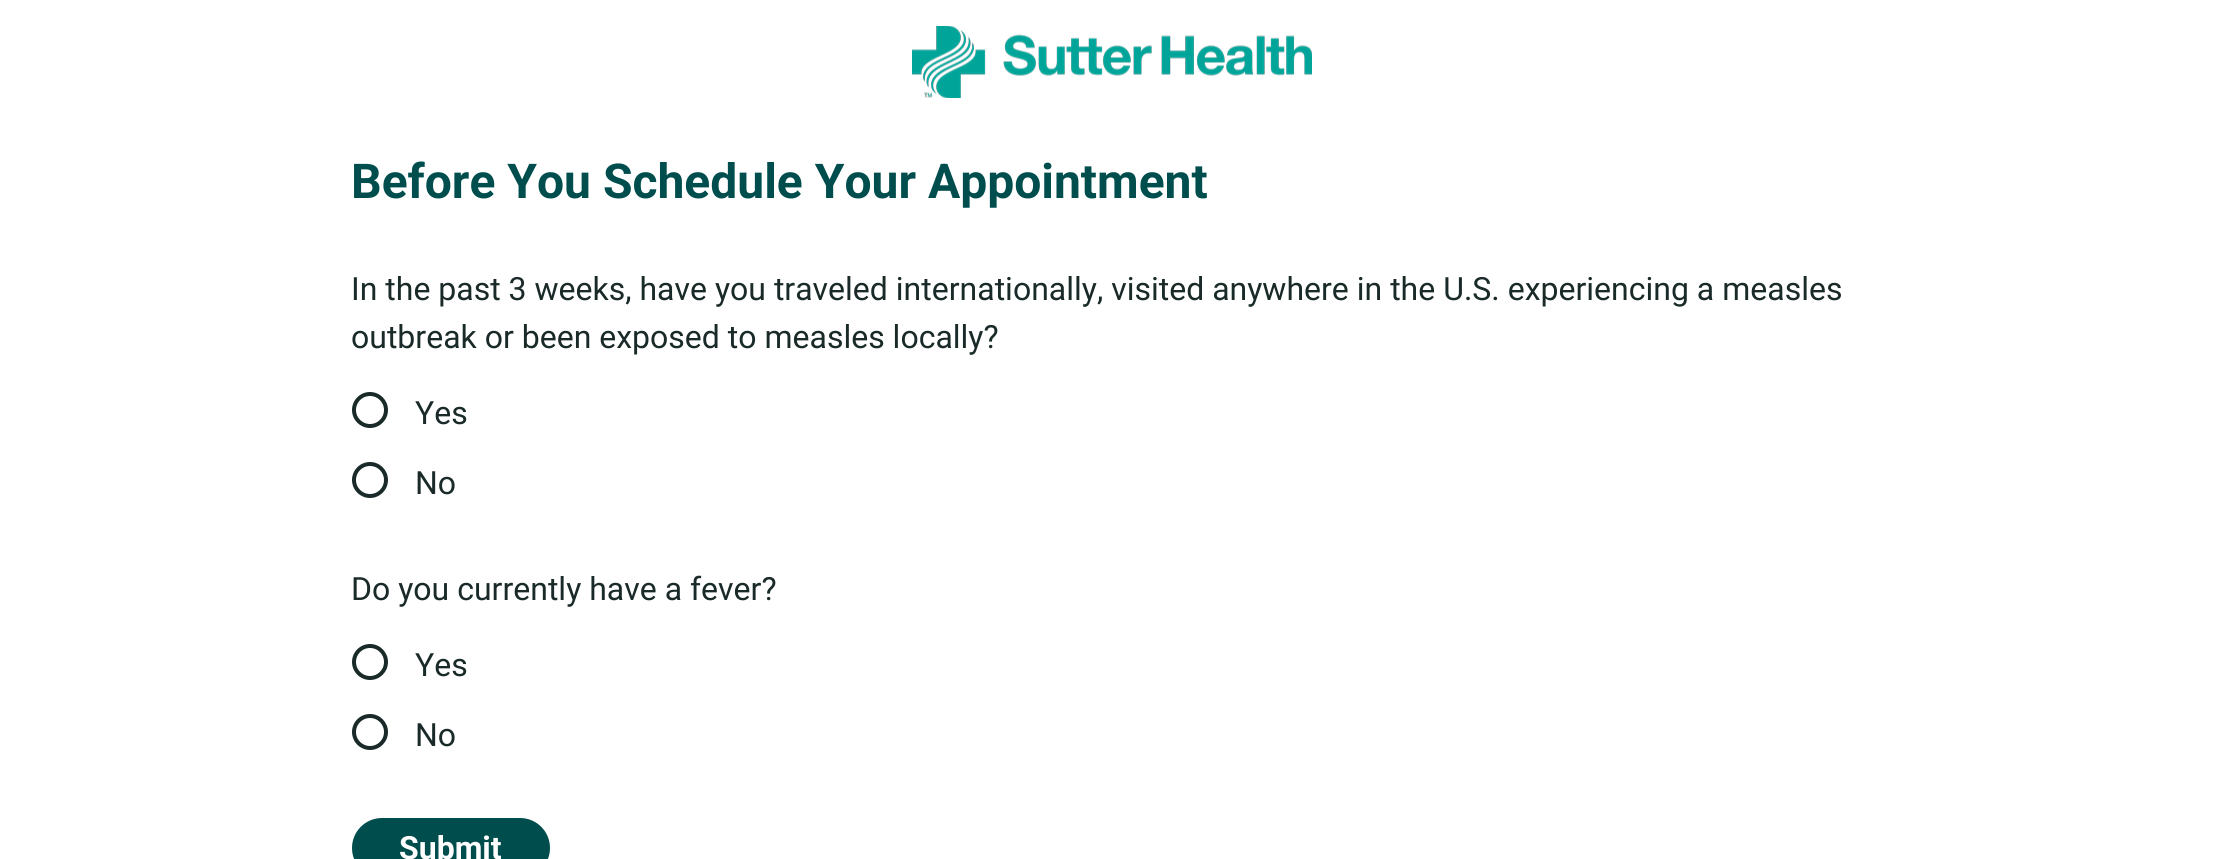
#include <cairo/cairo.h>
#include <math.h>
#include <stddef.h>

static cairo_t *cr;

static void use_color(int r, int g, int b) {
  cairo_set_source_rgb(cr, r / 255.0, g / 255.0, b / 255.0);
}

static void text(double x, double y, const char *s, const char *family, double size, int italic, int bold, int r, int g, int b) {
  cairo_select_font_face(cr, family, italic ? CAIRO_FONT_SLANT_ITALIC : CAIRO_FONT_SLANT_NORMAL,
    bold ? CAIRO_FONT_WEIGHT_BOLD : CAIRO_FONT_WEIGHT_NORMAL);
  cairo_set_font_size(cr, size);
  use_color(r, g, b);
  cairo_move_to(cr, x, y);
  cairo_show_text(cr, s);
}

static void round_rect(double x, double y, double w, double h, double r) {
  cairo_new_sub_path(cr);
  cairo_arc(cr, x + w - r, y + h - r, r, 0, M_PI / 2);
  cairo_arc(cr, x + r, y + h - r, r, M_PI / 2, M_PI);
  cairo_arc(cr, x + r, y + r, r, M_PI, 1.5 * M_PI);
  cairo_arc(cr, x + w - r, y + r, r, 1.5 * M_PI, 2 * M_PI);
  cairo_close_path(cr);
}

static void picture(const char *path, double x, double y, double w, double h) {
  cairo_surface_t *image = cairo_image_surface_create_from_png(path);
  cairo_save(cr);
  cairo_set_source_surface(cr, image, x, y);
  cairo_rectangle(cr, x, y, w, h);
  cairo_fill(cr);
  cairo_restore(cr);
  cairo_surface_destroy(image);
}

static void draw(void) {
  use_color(255, 255, 255);
  cairo_paint(cr);
  picture("img_01.png", 912, 26, 400, 72);
  cairo_arc(cr, 370, 410, 16, 0, 2 * M_PI);
  use_color(25, 42, 41);
  cairo_set_line_width(cr, 4);
  cairo_stroke(cr);
  cairo_arc(cr, 370, 480, 16, 0, 2 * M_PI);
  cairo_stroke(cr);
  cairo_arc(cr, 370, 662, 16, 0, 2 * M_PI);
  cairo_stroke(cr);
  cairo_arc(cr, 370, 732, 16, 0, 2 * M_PI);
  cairo_stroke(cr);
  use_color(0, 77, 77);
  round_rect(352, 818, 198, 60, 30);
  cairo_fill(cr);
  text(351, 198, "Before You Schedule Your Appointment", "Roboto", 48, 0, 1, 0, 77, 77);
  text(351, 300, "In the past 3 weeks, have you traveled internationally, visited anywhere in the U.S. experiencing a measles", "Roboto", 32, 0, 0, 25, 42, 41);
  text(351, 348, "outbreak or been exposed to measles locally?", "Roboto", 32, 0, 0, 25, 42, 41);
  text(415, 424, "Yes", "Roboto", 32, 0, 0, 25, 42, 41);
  text(415, 494, "No", "Roboto", 32, 0, 0, 25, 42, 41);
  text(351, 600, "Do you currently have a fever?", "Roboto", 32, 0, 0, 25, 42, 41);
  text(415, 676, "Yes", "Roboto", 32, 0, 0, 25, 42, 41);
  text(415, 746, "No", "Roboto", 32, 0, 0, 25, 42, 41);
  text(399, 859, "Submit", "Roboto", 32, 0, 1, 255, 255, 255);
}

int main(void) {
  cairo_surface_t *surface = cairo_image_surface_create(CAIRO_FORMAT_RGB24, 2221, 859);
  cr = cairo_create(surface);
  cairo_font_options_t *options = cairo_font_options_create();
  cairo_font_options_set_hint_metrics(options, CAIRO_HINT_METRICS_OFF);
  cairo_font_options_set_hint_style(options, CAIRO_HINT_STYLE_NONE);
  cairo_set_font_options(cr, options);
  cairo_set_miter_limit(cr, 4);
  draw();
  cairo_surface_write_to_png(surface, "out.png");
  cairo_font_options_destroy(options);
  cairo_destroy(cr);
  cairo_surface_destroy(surface);
  return 0;
}
